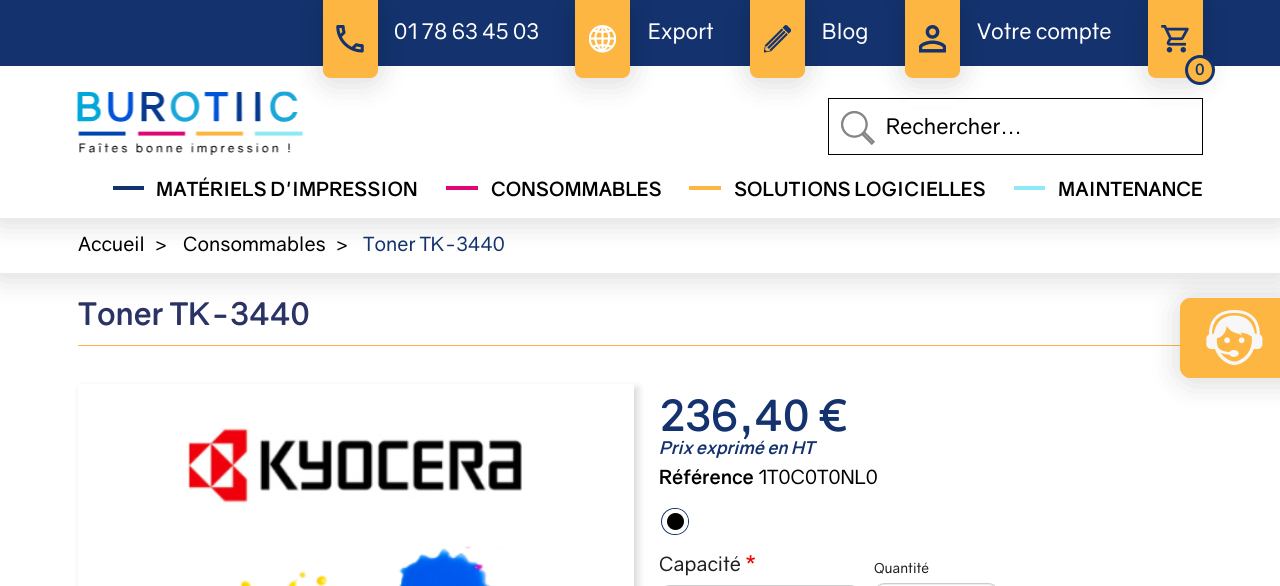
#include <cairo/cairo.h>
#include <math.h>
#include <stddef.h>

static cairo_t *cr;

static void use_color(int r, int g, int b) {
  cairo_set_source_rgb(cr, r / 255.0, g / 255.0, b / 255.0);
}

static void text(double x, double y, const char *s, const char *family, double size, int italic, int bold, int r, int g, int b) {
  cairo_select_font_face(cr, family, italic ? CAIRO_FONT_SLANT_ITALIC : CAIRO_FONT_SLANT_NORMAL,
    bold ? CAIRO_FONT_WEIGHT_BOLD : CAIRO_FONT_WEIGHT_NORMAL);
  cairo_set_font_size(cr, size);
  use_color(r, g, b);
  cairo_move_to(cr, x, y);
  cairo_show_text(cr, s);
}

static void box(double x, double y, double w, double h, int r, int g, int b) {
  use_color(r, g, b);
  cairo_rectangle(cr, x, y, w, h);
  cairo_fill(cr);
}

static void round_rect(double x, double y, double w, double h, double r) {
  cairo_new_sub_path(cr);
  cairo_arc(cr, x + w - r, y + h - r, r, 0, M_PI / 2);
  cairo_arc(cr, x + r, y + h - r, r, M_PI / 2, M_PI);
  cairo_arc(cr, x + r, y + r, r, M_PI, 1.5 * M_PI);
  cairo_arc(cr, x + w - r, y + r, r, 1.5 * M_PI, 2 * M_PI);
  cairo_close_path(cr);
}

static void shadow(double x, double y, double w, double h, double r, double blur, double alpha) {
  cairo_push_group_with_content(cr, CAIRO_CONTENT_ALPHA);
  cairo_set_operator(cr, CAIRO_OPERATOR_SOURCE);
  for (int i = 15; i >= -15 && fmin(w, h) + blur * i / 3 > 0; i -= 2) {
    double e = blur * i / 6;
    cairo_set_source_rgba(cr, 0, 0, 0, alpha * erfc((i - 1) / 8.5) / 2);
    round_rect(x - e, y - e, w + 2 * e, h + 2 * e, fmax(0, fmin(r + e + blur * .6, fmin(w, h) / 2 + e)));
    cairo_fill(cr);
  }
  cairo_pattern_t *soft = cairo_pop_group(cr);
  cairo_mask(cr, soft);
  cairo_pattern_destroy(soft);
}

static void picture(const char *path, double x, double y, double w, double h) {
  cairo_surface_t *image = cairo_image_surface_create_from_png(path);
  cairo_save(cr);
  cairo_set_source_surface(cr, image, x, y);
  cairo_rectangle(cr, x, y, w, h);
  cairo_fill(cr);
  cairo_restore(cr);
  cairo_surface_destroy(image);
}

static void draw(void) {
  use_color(255, 255, 255);
  cairo_paint(cr);
  use_color(0, 0, 0);
  shadow(0, 221, 1280, 55, 0, 16, 0.16);
  box(0, 218, 1280, 55, 255, 255, 255);
  use_color(0, 0, 0);
  shadow(0, 4, 1280, 217, 0, 16, 0.16);
  box(0, 66, 1280, 152, 255, 255, 255);
  box(0, 0, 1280, 66, 19, 50, 110);
  use_color(0, 0, 0);
  shadow(323, 4, 55, 77, 8, 16, 0.16);
  use_color(253, 182, 65);
  cairo_new_path(cr);
  cairo_move_to(cr, 323, 0);
  cairo_line_to(cr, 378, 0);
  cairo_line_to(cr, 378, 70);
  cairo_curve_to(cr, 378, 74.5, 374.5, 78, 370, 78);
  cairo_line_to(cr, 331, 78);
  cairo_curve_to(cr, 326.5, 78, 323, 74.5, 323, 70);
  cairo_close_path(cr);
  cairo_fill(cr);
  picture("img_01.png", 336, 25, 28, 28);
  use_color(0, 0, 0);
  shadow(575, 4, 55, 77, 8, 16, 0.16);
  use_color(253, 182, 65);
  cairo_new_path(cr);
  cairo_move_to(cr, 575, 0);
  cairo_line_to(cr, 630, 0);
  cairo_line_to(cr, 630, 70);
  cairo_curve_to(cr, 630, 74.5, 626.5, 78, 622, 78);
  cairo_line_to(cr, 583, 78);
  cairo_curve_to(cr, 578.5, 78, 575, 74.5, 575, 70);
  cairo_close_path(cr);
  cairo_fill(cr);
  picture("img_02.png", 589, 25, 27, 28);
  use_color(0, 0, 0);
  shadow(750, 4, 55, 77, 8, 16, 0.16);
  use_color(253, 182, 65);
  cairo_new_path(cr);
  cairo_move_to(cr, 750, 0);
  cairo_line_to(cr, 805, 0);
  cairo_line_to(cr, 805, 70);
  cairo_curve_to(cr, 805, 74.5, 801.5, 78, 797, 78);
  cairo_line_to(cr, 758, 78);
  cairo_curve_to(cr, 753.5, 78, 750, 74.5, 750, 70);
  cairo_close_path(cr);
  cairo_fill(cr);
  picture("img_03.png", 764, 25, 27, 28);
  use_color(0, 0, 0);
  shadow(905, 4, 55, 77, 8, 16, 0.16);
  use_color(253, 182, 65);
  cairo_new_path(cr);
  cairo_move_to(cr, 905, 0);
  cairo_line_to(cr, 960, 0);
  cairo_line_to(cr, 960, 70);
  cairo_curve_to(cr, 960, 74.5, 956.5, 78, 952, 78);
  cairo_line_to(cr, 913, 78);
  cairo_curve_to(cr, 908.5, 78, 905, 74.5, 905, 70);
  cairo_close_path(cr);
  cairo_fill(cr);
  picture("img_04.png", 919, 25, 27, 28);
  box(907, 99, 51, 6, 255, 255, 255);
  cairo_rectangle(cr, 828.5, 98.5, 374, 56);
  use_color(0, 0, 0);
  cairo_set_line_width(cr, 1);
  cairo_stroke(cr);
  use_color(0, 0, 0);
  shadow(1148, 4, 55, 77, 8, 16, 0.16);
  use_color(253, 182, 65);
  cairo_new_path(cr);
  cairo_move_to(cr, 1148, 0);
  cairo_line_to(cr, 1203, 0);
  cairo_line_to(cr, 1203, 70);
  cairo_curve_to(cr, 1203, 74.5, 1199.5, 78, 1195, 78);
  cairo_line_to(cr, 1156, 78);
  cairo_curve_to(cr, 1151.5, 78, 1148, 74.5, 1148, 70);
  cairo_close_path(cr);
  cairo_fill(cr);
  picture("img_05.png", 1161, 25, 28, 28);
  cairo_arc(cr, 1200, 70, 13.5, 0, 2 * M_PI);
  cairo_fill_preserve(cr);
  use_color(19, 50, 110);
  cairo_set_line_width(cr, 3);
  cairo_stroke(cr);
  picture("img_06.png", 77, 91, 226, 64);
  picture("img_07.png", 841, 111, 34, 34);
  box(113, 186, 31, 4, 19, 50, 110);
  box(446, 186, 32, 4, 224, 6, 115);
  box(689, 186, 32, 4, 253, 182, 65);
  box(1014, 186, 31, 4, 140, 233, 245);
  box(78, 345, 1102, 1, 253, 182, 65);
  use_color(0, 0, 0);
  shadow(1180, 301, 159, 80, 11, 16, 0.16);
  use_color(253, 182, 65);
  cairo_new_path(cr);
  cairo_move_to(cr, 1191, 298);
  cairo_line_to(cr, 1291, 298);
  cairo_line_to(cr, 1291, 378);
  cairo_line_to(cr, 1191, 378);
  cairo_curve_to(cr, 1185, 378, 1180, 373, 1180, 367);
  cairo_line_to(cr, 1180, 309);
  cairo_curve_to(cr, 1180, 303, 1185, 298, 1191, 298);
  cairo_close_path(cr);
  cairo_fill(cr);
  picture("img_08.png", 1206, 310, 57, 55);
  cairo_new_path(cr);
  cairo_move_to(cr, 1191, 298.5);
  cairo_line_to(cr, 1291.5, 298.5);
  cairo_line_to(cr, 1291.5, 377.5);
  cairo_line_to(cr, 1191, 377.5);
  cairo_curve_to(cr, 1185, 377.5, 1180.5, 373, 1180.5, 367);
  cairo_line_to(cr, 1180.5, 309);
  cairo_curve_to(cr, 1180.5, 303, 1185, 298.5, 1191, 298.5);
  cairo_close_path(cr);
  cairo_set_line_width(cr, 1);
  cairo_stroke(cr);
  cairo_save(cr);
  cairo_set_fill_rule(cr, CAIRO_FILL_RULE_EVEN_ODD);
  cairo_new_path(cr);
  cairo_move_to(cr, 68, 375);
  cairo_line_to(cr, 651, 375);
  cairo_line_to(cr, 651, 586);
  cairo_line_to(cr, 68, 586);
  cairo_close_path(cr);
  cairo_move_to(cr, 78, 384);
  cairo_line_to(cr, 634, 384);
  cairo_line_to(cr, 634, 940);
  cairo_line_to(cr, 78, 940);
  cairo_close_path(cr);
  cairo_clip(cr);
  use_color(0, 0, 0);
  shadow(81, 388, 557, 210, 0, 4, 0.16);
  cairo_restore(cr);
  picture("img_09.png", 186, 428, 336, 158);
  round_rect(661.5, 508.5, 27, 26, 13);
  use_color(19, 50, 110);
  cairo_stroke(cr);
  use_color(0, 0, 0);
  cairo_arc(cr, 675.5, 521.5, 10.5, 0, 2 * M_PI);
  cairo_fill_preserve(cr);
  use_color(255, 255, 255);
  cairo_set_line_width(cr, 4);
  cairo_stroke(cr);
  picture("img_10.png", 746, 555, 9, 9);
  round_rect(659.5, 585.5, 201, 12, 10.5);
  use_color(204, 204, 204);
  cairo_set_line_width(cr, 1);
  cairo_stroke(cr);
  use_color(236, 236, 236);
  cairo_new_path(cr);
  cairo_move_to(cr, 885, 585);
  cairo_line_to(cr, 988, 585);
  cairo_curve_to(cr, 993, 585, 998, 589, 998, 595);
  cairo_curve_to(cr, 998, 580, 981, 584, 971, 584);
  cairo_line_to(cr, 902, 584);
  cairo_curve_to(cr, 892, 584, 875, 580, 875, 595);
  cairo_curve_to(cr, 875, 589, 879, 585, 885, 585);
  cairo_close_path(cr);
  cairo_fill(cr);
  round_rect(874.5, 583.5, 124, 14, 10.5);
  use_color(204, 204, 204);
  cairo_stroke(cr);
  text(394, 39, "01 78 63 45 03", "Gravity", 22, 0, 0, 255, 255, 255);
  text(648, 39, "Export", "Gravity", 22, 0, 0, 255, 255, 255);
  text(822, 39, "Blog", "Gravity", 22, 0, 0, 255, 255, 255);
  text(977, 39, "Votre compte", "Gravity", 22, 0, 0, 255, 255, 255);
  text(1195, 75, "0", "Gravity", 16, 0, 1, 19, 50, 110);
  text(886, 134, "Rechercher...", "Gravity", 22, 0, 0, 0, 0, 0);
  text(156, 196, "MATÉRIELS D'IMPRESSION", "Gravity", 20, 0, 1, 0, 0, 0);
  text(491, 196, "CONSOMMABLES", "Gravity", 20, 0, 1, 0, 0, 0);
  text(734, 196, "SOLUTIONS LOGICIELLES", "Gravity", 20, 0, 1, 0, 0, 0);
  text(1058, 196, "MAINTENANCE", "Gravity", 20, 0, 1, 0, 0, 0);
  text(78, 251, "Accueil", "Gravity", 20, 0, 0, 0, 0, 0);
  text(154, 251, ">", "Gravity", 20, 0, 0, 0, 0, 0);
  text(183, 251, "Consommables", "Gravity", 20, 0, 0, 0, 0, 0);
  text(335, 251, ">", "Gravity", 20, 0, 0, 0, 0, 0);
  text(363, 251, "Toner TK-3440", "Gravity", 20, 0, 0, 19, 50, 110);
  text(78, 325, "Toner TK-3440", "Gravity", 32, 0, 1, 42, 51, 100);
  text(659, 431, "236,40 €", "Gravity", 44, 0, 1, 19, 50, 110);
  text(659, 454, "Prix exprimé en HT", "Gravity", 18, 1, 1, 19, 50, 110);
  text(659, 484, "Référence", "Gravity", 20, 0, 1, 0, 0, 0);
  text(758, 484, "1T0C0T0NL0", "Gravity", 20, 0, 0, 0, 0, 0);
  text(659, 571, "Capacité", "Gravity", 20, 0, 0, 33, 33, 33);
  text(874, 573, "Quantité", "Gravity", 14, 0, 0, 33, 33, 33);
}

int main(void) {
  cairo_surface_t *surface = cairo_image_surface_create(CAIRO_FORMAT_RGB24, 1280, 586);
  cr = cairo_create(surface);
  cairo_font_options_t *options = cairo_font_options_create();
  cairo_font_options_set_hint_metrics(options, CAIRO_HINT_METRICS_OFF);
  cairo_font_options_set_hint_style(options, CAIRO_HINT_STYLE_NONE);
  cairo_set_font_options(cr, options);
  cairo_set_miter_limit(cr, 4);
  draw();
  cairo_surface_write_to_png(surface, "out.png");
  cairo_font_options_destroy(options);
  cairo_destroy(cr);
  cairo_surface_destroy(surface);
  return 0;
}
